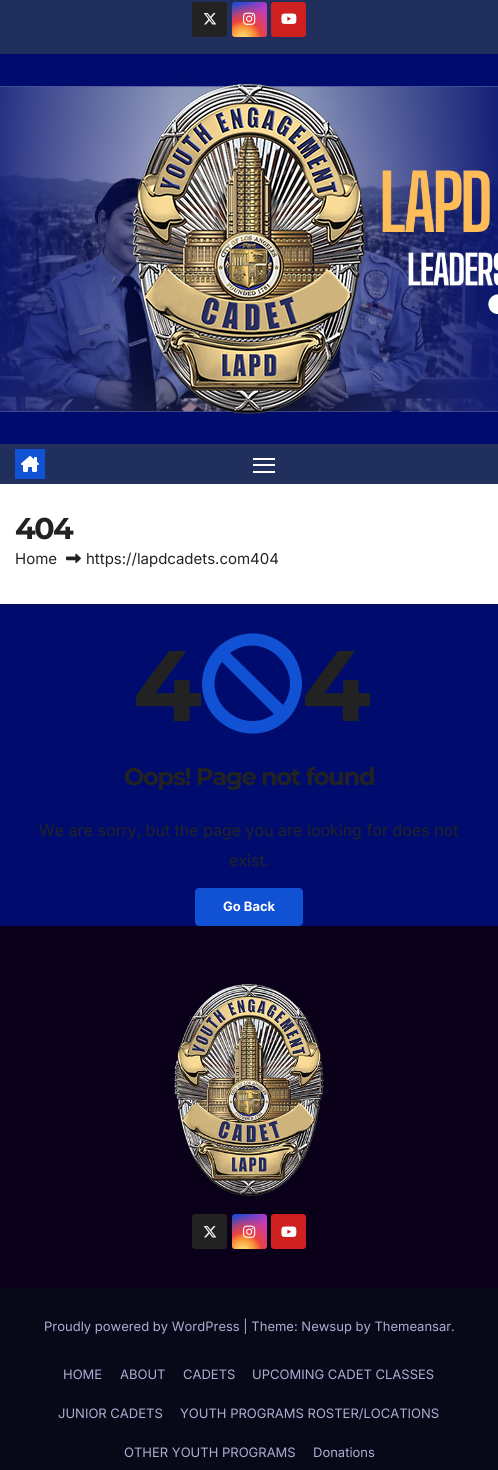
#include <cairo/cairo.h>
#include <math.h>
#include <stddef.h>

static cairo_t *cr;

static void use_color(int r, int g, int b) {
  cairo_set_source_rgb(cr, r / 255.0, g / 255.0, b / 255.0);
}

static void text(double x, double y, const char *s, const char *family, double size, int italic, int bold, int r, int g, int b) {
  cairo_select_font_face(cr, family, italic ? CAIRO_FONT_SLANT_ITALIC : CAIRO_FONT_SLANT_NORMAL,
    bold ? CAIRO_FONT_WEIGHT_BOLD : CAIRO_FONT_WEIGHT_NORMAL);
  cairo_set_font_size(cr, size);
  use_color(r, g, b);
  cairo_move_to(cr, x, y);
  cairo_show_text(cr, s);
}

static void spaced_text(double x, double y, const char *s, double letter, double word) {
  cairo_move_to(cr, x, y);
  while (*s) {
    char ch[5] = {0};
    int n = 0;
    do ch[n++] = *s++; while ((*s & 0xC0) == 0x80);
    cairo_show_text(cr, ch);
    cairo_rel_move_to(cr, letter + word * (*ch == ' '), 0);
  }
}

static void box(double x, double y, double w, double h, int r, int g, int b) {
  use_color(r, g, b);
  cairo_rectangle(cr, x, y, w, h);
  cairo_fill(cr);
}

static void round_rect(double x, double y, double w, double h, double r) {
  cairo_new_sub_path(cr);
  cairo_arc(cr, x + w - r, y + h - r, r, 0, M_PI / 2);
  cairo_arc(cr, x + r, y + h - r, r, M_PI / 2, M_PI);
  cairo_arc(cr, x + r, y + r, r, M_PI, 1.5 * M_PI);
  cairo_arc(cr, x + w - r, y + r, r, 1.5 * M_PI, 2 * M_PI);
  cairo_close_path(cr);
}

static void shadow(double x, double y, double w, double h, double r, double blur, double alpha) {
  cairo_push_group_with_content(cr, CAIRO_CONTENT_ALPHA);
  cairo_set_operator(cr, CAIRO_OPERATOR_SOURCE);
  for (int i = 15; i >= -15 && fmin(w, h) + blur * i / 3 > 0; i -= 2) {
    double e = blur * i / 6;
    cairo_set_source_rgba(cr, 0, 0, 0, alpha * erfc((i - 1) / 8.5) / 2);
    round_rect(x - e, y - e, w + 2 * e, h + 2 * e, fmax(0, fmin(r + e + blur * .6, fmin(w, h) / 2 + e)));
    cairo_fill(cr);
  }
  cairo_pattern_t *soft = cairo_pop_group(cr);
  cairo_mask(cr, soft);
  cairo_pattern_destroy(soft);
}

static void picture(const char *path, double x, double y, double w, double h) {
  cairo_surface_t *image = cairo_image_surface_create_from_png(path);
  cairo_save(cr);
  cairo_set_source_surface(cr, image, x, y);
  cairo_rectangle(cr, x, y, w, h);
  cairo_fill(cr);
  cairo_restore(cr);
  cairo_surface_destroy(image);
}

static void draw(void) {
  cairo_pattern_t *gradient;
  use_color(0, 12, 109);
  cairo_paint(cr);
  box(0, 0, 498, 54, 32, 47, 91);
  use_color(34, 34, 34);
  round_rect(192, 2, 35, 35, 3);
  cairo_fill(cr);
  picture("img_01.png", 203, 13, 14, 12);
  gradient = cairo_pattern_create_linear(232, 2, 267, 37);
  cairo_pattern_add_color_stop_rgba(gradient, 0.12, 0.137, 0.294, 0.843, 1);
  cairo_pattern_add_color_stop_rgba(gradient, 0.58, 0.765, 0.235, 0.745, 1);
  cairo_set_source(cr, gradient);
  cairo_pattern_destroy(gradient);
  round_rect(232, 2, 35, 35, 3);
  cairo_fill(cr);
  gradient = cairo_pattern_create_radial(243, 39, 0, 243, 39, 44);
  cairo_pattern_add_color_stop_rgba(gradient, 0, 1, 0.882, 0.49, 1);
  cairo_pattern_add_color_stop_rgba(gradient, 0.1, 1, 0.804, 0.412, 1);
  cairo_pattern_add_color_stop_rgba(gradient, 0.28, 0.98, 0.569, 0.216, 1);
  cairo_pattern_add_color_stop_rgba(gradient, 0.42, 0.922, 0.255, 0.255, 1);
  cairo_pattern_add_color_stop_rgba(gradient, 0.82, 0.922, 0.255, 0.255, 0);
  cairo_set_source(cr, gradient);
  cairo_pattern_destroy(gradient);
  round_rect(232, 2, 35, 35, 3);
  cairo_fill(cr);
  picture("img_02.png", 243, 12, 13, 13);
  use_color(205, 32, 31);
  round_rect(271, 2, 35, 35, 3);
  cairo_fill(cr);
  picture("img_03.png", 281, 13, 16, 11);
  picture("img_04.png", 0, 86, 498, 326);
  picture("img_05.png", 132, 79, 234, 335);
  use_color(0, 0, 0);
  shadow(0, 485, 498, 120, 0, 1.5, 0.15);
  box(0, 444, 498, 40, 32, 47, 91);
  box(15, 449, 30, 30, 17, 81, 211);
  picture("img_06.png", 21, 456, 18, 16);
  box(253, 458, 22, 2, 255, 255, 255);
  box(253, 464, 22, 2, 255, 255, 255);
  box(253, 471, 22, 2, 255, 255, 255);
  box(0, 484, 498, 120, 255, 255, 255);
  picture("img_07.png", 66, 553, 15, 10);
  use_color(17, 81, 211);
  cairo_new_path(cr);
  cairo_move_to(cr, 274, 714);
  cairo_line_to(cr, 222, 662);
  cairo_curve_to(cr, 197, 696, 240, 738, 274, 714);
  cairo_close_path(cr);
  cairo_move_to(cr, 283, 705);
  cairo_curve_to(cr, 307, 671, 264, 628, 230, 653);
  cairo_close_path(cr);
  cairo_move_to(cr, 202, 684);
  cairo_curve_to(cr, 203, 636, 262, 615, 292, 653);
  cairo_curve_to(cr, 298, 662, 302, 673, 302, 684);
  cairo_curve_to(cr, 302, 694, 298, 705, 292, 714);
  cairo_curve_to(cr, 262, 752, 203, 731, 202, 684);
  cairo_close_path(cr);
  cairo_fill(cr);
  round_rect(196, 889, 106, 36, 3);
  cairo_fill_preserve(cr);
  cairo_stroke(cr);
  box(0, 926, 498, 362, 11, 0, 25);
  picture("img_08.png", 174, 984, 150, 212);
  use_color(34, 34, 34);
  round_rect(192, 1214, 35, 35, 3);
  cairo_fill(cr);
  picture("img_01.png", 203, 1226, 14, 12);
  gradient = cairo_pattern_create_linear(232, 1214, 267, 1249);
  cairo_pattern_add_color_stop_rgba(gradient, 0.12, 0.137, 0.294, 0.843, 1);
  cairo_pattern_add_color_stop_rgba(gradient, 0.58, 0.765, 0.235, 0.745, 1);
  cairo_set_source(cr, gradient);
  cairo_pattern_destroy(gradient);
  round_rect(232, 1214, 35, 35, 3);
  cairo_fill(cr);
  gradient = cairo_pattern_create_radial(243, 1251, 0, 243, 1251, 44);
  cairo_pattern_add_color_stop_rgba(gradient, 0, 1, 0.882, 0.49, 1);
  cairo_pattern_add_color_stop_rgba(gradient, 0.1, 1, 0.804, 0.412, 1);
  cairo_pattern_add_color_stop_rgba(gradient, 0.28, 0.98, 0.569, 0.216, 1);
  cairo_pattern_add_color_stop_rgba(gradient, 0.42, 0.922, 0.255, 0.255, 1);
  cairo_pattern_add_color_stop_rgba(gradient, 0.82, 0.922, 0.255, 0.255, 0);
  cairo_set_source(cr, gradient);
  cairo_pattern_destroy(gradient);
  round_rect(232, 1214, 35, 35, 3);
  cairo_fill(cr);
  picture("img_09.png", 243, 1225, 13, 13);
  use_color(205, 32, 31);
  round_rect(271, 1214, 35, 35, 3);
  cairo_fill(cr);
  picture("img_03.png", 281, 1226, 16, 11);
  box(0, 1288, 498, 182, 9, 8, 24);
  cairo_select_font_face(cr, "Montserrat", CAIRO_FONT_SLANT_NORMAL, CAIRO_FONT_WEIGHT_BOLD);
  cairo_set_font_size(cr, 30);
  use_color(34, 34, 34);
  spaced_text(15, 539, "404", -1.5, 0);
  text(15, 564, "Home", "Inter", 15, 0, 0, 34, 34, 34);
  text(86, 564, "https://lapdcadets.com404", "Inter", 15, 0, 0, 34, 34, 34);
  cairo_select_font_face(cr, "Montserrat", CAIRO_FONT_SLANT_NORMAL, CAIRO_FONT_WEIGHT_BOLD);
  cairo_set_font_size(cr, 100);
  spaced_text(133, 721, "4", -5, 0);
  spaced_text(302, 721, "4", -5, 0);
  cairo_set_font_size(cr, 24);
  spaced_text(124, 785, "Oops! Page not found", -1.2, 0);
  text(39, 836, "We are sorry, but the page you are looking for does not", "Inter", 16, 0, 0, 34, 34, 34);
  text(229, 866, "exist.", "Inter", 16, 0, 0, 34, 34, 34);
  text(223, 911, "Go Back", "Inter", 13, 0, 1, 255, 255, 255);
  text(44, 1331, "Proudly powered by WordPress | Theme: Newsup by Themeansar.", "Inter", 13, 0, 0, 170, 174, 209);
  text(63, 1379, "HOME", "Inter", 13, 0, 0, 170, 174, 209);
  text(120, 1379, "ABOUT", "Inter", 13, 0, 0, 170, 174, 209);
  text(183, 1379, "CADETS", "Inter", 13, 0, 0, 170, 174, 209);
  text(252, 1379, "UPCOMING CADET CLASSES", "Inter", 13, 0, 0, 170, 174, 209);
  text(58, 1418, "JUNIOR CADETS", "Inter", 13, 0, 0, 170, 174, 209);
  text(180, 1418, "YOUTH PROGRAMS ROSTER/LOCATIONS", "Inter", 13, 0, 0, 170, 174, 209);
  text(124, 1457, "OTHER YOUTH PROGRAMS", "Inter", 13, 0, 0, 170, 174, 209);
  text(313, 1457, "Donations", "Inter", 13, 0, 0, 170, 174, 209);
}

int main(void) {
  cairo_surface_t *surface = cairo_image_surface_create(CAIRO_FORMAT_RGB24, 498, 1470);
  cr = cairo_create(surface);
  cairo_font_options_t *options = cairo_font_options_create();
  cairo_font_options_set_hint_metrics(options, CAIRO_HINT_METRICS_OFF);
  cairo_font_options_set_hint_style(options, CAIRO_HINT_STYLE_NONE);
  cairo_set_font_options(cr, options);
  cairo_set_miter_limit(cr, 4);
  draw();
  cairo_surface_write_to_png(surface, "out.png");
  cairo_font_options_destroy(options);
  cairo_destroy(cr);
  cairo_surface_destroy(surface);
  return 0;
}
